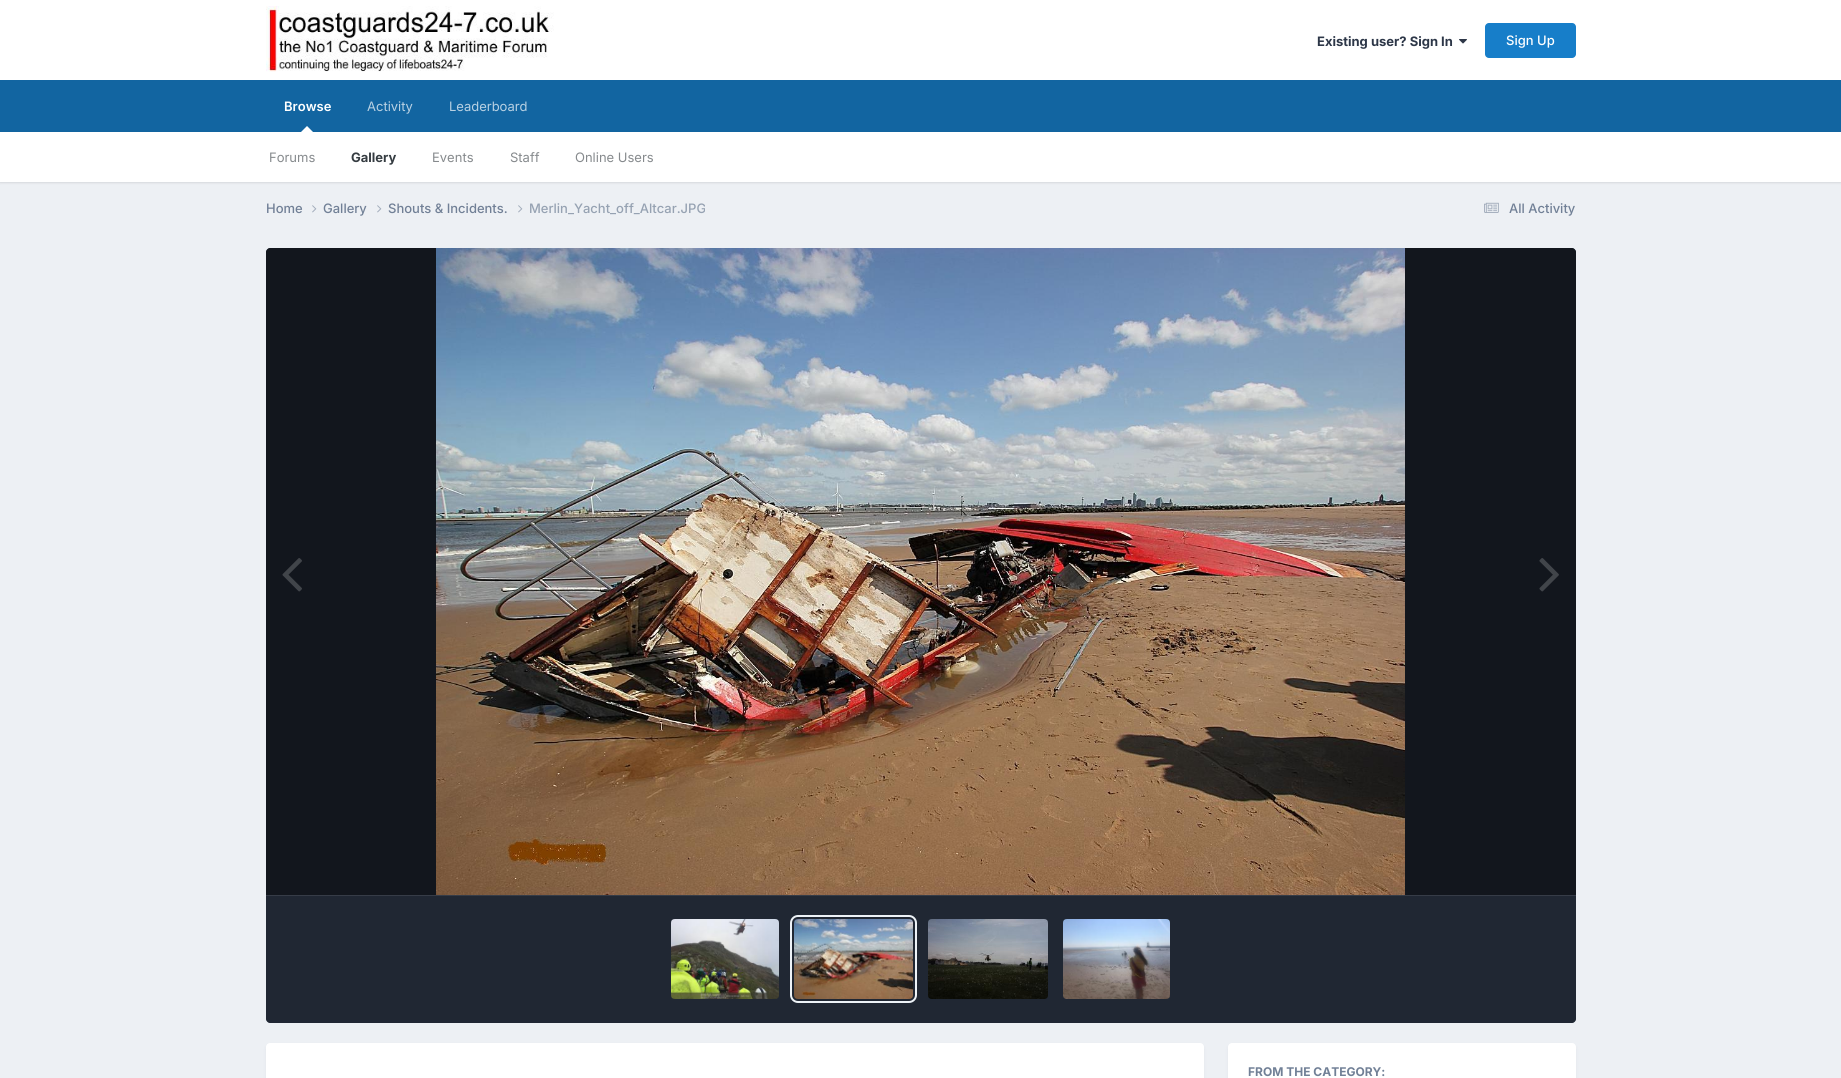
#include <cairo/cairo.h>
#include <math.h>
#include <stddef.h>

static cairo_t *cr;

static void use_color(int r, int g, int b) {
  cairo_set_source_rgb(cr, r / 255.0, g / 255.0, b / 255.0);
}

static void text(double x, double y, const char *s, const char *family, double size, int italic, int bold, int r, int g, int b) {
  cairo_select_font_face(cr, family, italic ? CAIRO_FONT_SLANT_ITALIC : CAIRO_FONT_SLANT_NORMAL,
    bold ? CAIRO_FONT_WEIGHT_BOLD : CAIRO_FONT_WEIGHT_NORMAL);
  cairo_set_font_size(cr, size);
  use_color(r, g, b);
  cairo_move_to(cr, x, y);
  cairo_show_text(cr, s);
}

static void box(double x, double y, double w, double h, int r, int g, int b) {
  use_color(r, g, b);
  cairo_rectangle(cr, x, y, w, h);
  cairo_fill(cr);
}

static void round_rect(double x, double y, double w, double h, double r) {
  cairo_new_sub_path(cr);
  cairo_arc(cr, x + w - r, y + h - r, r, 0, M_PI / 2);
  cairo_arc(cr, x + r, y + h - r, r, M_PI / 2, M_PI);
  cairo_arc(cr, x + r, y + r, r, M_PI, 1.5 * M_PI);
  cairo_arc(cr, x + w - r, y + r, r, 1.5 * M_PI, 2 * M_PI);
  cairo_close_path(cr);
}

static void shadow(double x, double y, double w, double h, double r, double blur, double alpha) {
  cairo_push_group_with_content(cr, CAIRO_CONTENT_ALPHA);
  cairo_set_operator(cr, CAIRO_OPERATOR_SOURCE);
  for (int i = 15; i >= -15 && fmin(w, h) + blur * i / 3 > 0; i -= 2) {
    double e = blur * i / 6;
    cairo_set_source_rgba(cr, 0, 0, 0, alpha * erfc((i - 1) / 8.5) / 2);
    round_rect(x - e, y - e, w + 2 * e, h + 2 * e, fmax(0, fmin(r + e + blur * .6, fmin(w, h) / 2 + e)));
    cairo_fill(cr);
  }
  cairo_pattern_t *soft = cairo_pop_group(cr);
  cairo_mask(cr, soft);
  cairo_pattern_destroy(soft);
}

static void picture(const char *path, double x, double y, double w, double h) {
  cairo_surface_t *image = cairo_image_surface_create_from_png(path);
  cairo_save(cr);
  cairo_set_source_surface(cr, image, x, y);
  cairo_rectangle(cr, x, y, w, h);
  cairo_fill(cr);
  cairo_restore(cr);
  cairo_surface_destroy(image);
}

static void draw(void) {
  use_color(237, 240, 244);
  cairo_paint(cr);
  box(0, 0, 1841, 80, 255, 255, 255);
  picture("img_01.png", 266, 6, 288, 66);
  picture("img_02.png", 1459, 39, 8, 5);
  use_color(23, 126, 201);
  round_rect(1485, 23, 91, 35, 4);
  cairo_fill(cr);
  box(0, 80, 1841, 52, 18, 101, 161);
  use_color(0, 0, 0);
  shadow(0, 133, 1841, 50, 0, 1, 0.1);
  use_color(255, 255, 255);
  cairo_new_path(cr);
  cairo_move_to(cr, 313, 132);
  cairo_line_to(cr, 301, 132);
  cairo_line_to(cr, 307, 126);
  cairo_close_path(cr);
  cairo_fill(cr);
  box(0, 132, 1841, 50, 255, 255, 255);
  picture("img_03.png", 312, 205, 5, 8);
  picture("img_03.png", 377, 205, 5, 8);
  picture("img_03.png", 518, 205, 5, 8);
  picture("img_04.png", 1484, 202, 15, 11);
  use_color(45, 55, 72);
  cairo_new_path(cr);
  cairo_move_to(cr, 270, 248);
  cairo_line_to(cr, 1572, 248);
  cairo_curve_to(cr, 1574, 248, 1576, 250, 1576, 252);
  cairo_line_to(cr, 1576, 895);
  cairo_line_to(cr, 266, 895);
  cairo_line_to(cr, 266, 252);
  cairo_curve_to(cr, 266, 250, 268, 248, 270, 248);
  cairo_close_path(cr);
  cairo_fill(cr);
  cairo_set_source_rgba(cr, 0, 0, 0, 0.6);
  cairo_new_path(cr);
  cairo_move_to(cr, 270, 248);
  cairo_line_to(cr, 1572, 248);
  cairo_curve_to(cr, 1574, 248, 1576, 250, 1576, 252);
  cairo_line_to(cr, 1576, 895);
  cairo_line_to(cr, 266, 895);
  cairo_line_to(cr, 266, 252);
  cairo_curve_to(cr, 266, 250, 268, 248, 270, 248);
  cairo_close_path(cr);
  cairo_fill(cr);
  picture("img_05.png", 436, 248, 969, 647);
  picture("img_06.png", 282, 558, 20, 34);
  picture("img_07.png", 1539, 558, 20, 34);
  use_color(45, 55, 72);
  cairo_new_path(cr);
  cairo_move_to(cr, 266, 895);
  cairo_line_to(cr, 1576, 895);
  cairo_line_to(cr, 1576, 1019);
  cairo_curve_to(cr, 1576, 1021, 1574, 1023, 1572, 1023);
  cairo_line_to(cr, 270, 1023);
  cairo_curve_to(cr, 268, 1023, 266, 1021, 266, 1019);
  cairo_close_path(cr);
  cairo_fill(cr);
  cairo_set_source_rgba(cr, 0, 0, 0, 0.3);
  cairo_new_path(cr);
  cairo_move_to(cr, 266, 895);
  cairo_line_to(cr, 1576, 895);
  cairo_line_to(cr, 1576, 1019);
  cairo_curve_to(cr, 1576, 1021, 1574, 1023, 1572, 1023);
  cairo_line_to(cr, 270, 1023);
  cairo_curve_to(cr, 268, 1023, 266, 1021, 266, 1019);
  cairo_close_path(cr);
  cairo_fill(cr);
  box(266, 895, 1310, 1, 54, 60, 71);
  picture("img_08.png", 671, 919, 108, 80);
  round_rect(791, 916, 125, 86, 7);
  use_color(237, 242, 247);
  cairo_stroke(cr);
  picture("img_09.png", 794, 919, 119, 80);
  picture("img_10.png", 928, 919, 120, 80);
  picture("img_11.png", 1063, 919, 107, 80);
  use_color(45, 55, 72);
  shadow(267, 1046, 936, 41, 3, 2, 0.1);
  use_color(255, 255, 255);
  round_rect(266, 1043, 938, 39, 4);
  cairo_fill(cr);
  use_color(45, 55, 72);
  shadow(1229, 1046, 346, 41, 3, 2, 0.1);
  use_color(255, 255, 255);
  round_rect(1228, 1043, 348, 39, 4);
  cairo_fill(cr);
  text(1317, 46, "Existing user? Sign In", "Inter", 13, 0, 1, 45, 55, 72);
  text(1506, 45, "Sign Up", "Inter Medium", 13, 0, 0, 255, 255, 255);
  text(284, 111, "Browse", "Inter SemiBold", 13, 0, 0, 255, 255, 255);
  text(269, 162, "Forums", "Inter", 13, 0, 0, 134, 138, 141);
  text(351, 162, "Gallery", "Inter", 13, 0, 1, 53, 60, 65);
  text(432, 162, "Events", "Inter", 13, 0, 0, 134, 138, 141);
  text(510, 162, "Staff", "Inter", 13, 0, 0, 134, 138, 141);
  text(575, 162, "Online Users", "Inter", 13, 0, 0, 134, 138, 141);
  text(367, 111, "Activity", "Inter", 13, 0, 0, 184, 209, 227);
  text(449, 111, "Leaderboard", "Inter", 13, 0, 0, 184, 209, 227);
  text(266, 213, "Home", "Inter Medium", 13, 0, 0, 113, 128, 150);
  text(323, 213, "Gallery", "Inter Medium", 13, 0, 0, 113, 128, 150);
  text(388, 213, "Shouts & Incidents.", "Inter Medium", 13, 0, 0, 113, 128, 150);
  text(529, 213, "Merlin_Yacht_off_Altcar.JPG", "Inter Medium", 13, 0, 0, 150, 162, 178);
  text(1509, 213, "All Activity", "Inter Medium", 13, 0, 0, 113, 128, 150);
  text(1248, 1076, "FROM THE CATEGORY:", "Inter", 12, 0, 1, 113, 128, 150);
}

int main(void) {
  cairo_surface_t *surface = cairo_image_surface_create(CAIRO_FORMAT_RGB24, 1841, 1078);
  cr = cairo_create(surface);
  cairo_font_options_t *options = cairo_font_options_create();
  cairo_font_options_set_hint_metrics(options, CAIRO_HINT_METRICS_OFF);
  cairo_font_options_set_hint_style(options, CAIRO_HINT_STYLE_NONE);
  cairo_set_font_options(cr, options);
  cairo_set_miter_limit(cr, 4);
  draw();
  cairo_surface_write_to_png(surface, "out.png");
  cairo_font_options_destroy(options);
  cairo_destroy(cr);
  cairo_surface_destroy(surface);
  return 0;
}
